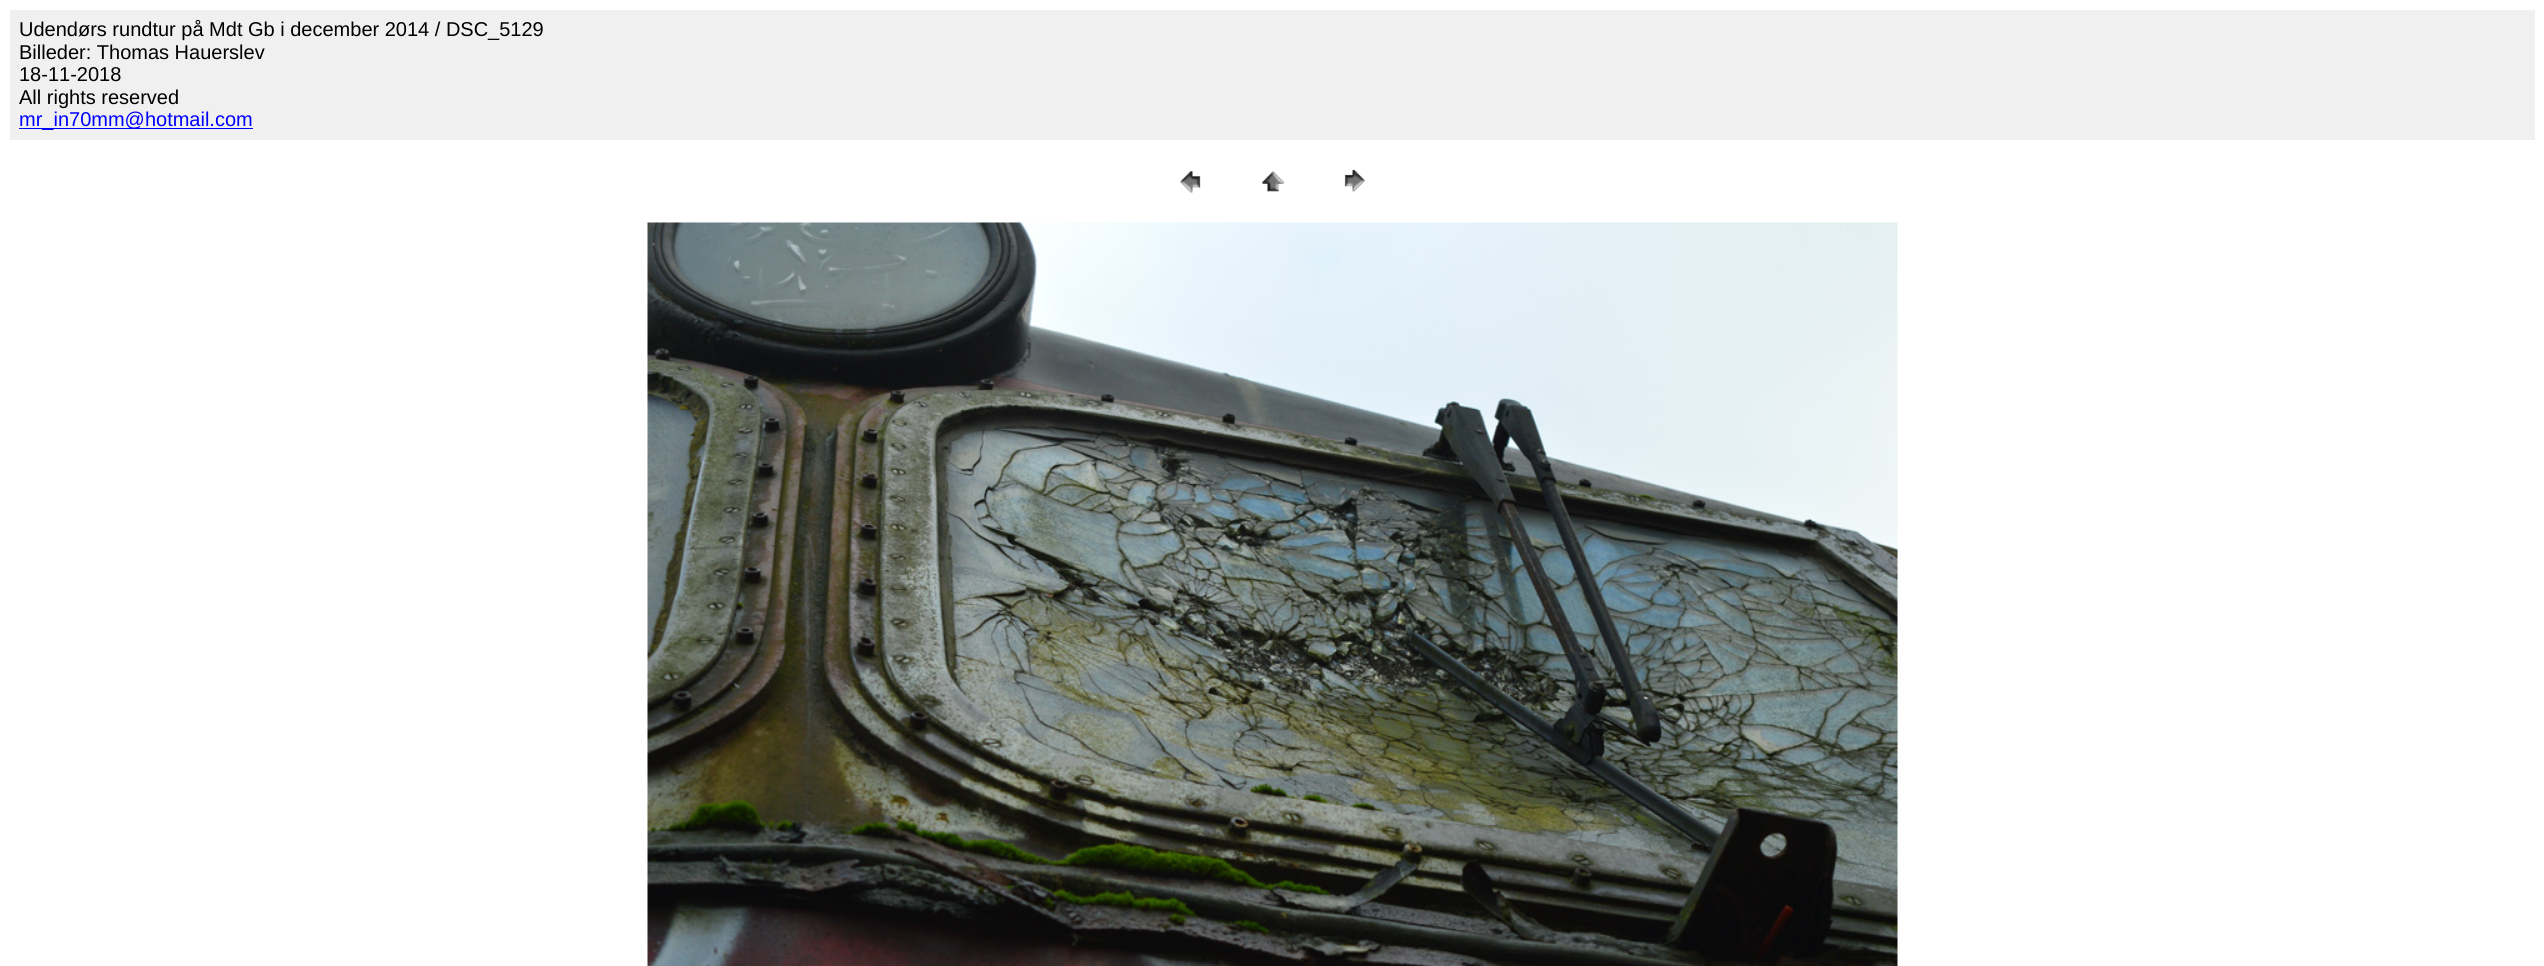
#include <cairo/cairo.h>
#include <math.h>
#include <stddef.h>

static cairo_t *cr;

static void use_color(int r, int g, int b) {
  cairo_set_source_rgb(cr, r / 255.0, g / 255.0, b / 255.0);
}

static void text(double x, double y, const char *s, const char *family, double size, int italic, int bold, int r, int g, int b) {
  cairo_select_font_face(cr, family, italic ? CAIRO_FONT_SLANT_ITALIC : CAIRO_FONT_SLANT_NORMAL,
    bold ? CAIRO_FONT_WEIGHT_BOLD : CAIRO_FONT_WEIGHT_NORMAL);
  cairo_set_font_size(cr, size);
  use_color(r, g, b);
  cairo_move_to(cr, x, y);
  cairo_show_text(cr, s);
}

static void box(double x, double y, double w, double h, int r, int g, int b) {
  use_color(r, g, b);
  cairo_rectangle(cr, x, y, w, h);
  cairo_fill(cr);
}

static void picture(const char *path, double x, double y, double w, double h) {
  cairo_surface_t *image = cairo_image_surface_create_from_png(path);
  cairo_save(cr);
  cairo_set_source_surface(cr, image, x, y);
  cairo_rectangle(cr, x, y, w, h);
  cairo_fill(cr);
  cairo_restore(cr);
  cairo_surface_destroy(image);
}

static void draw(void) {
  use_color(255, 255, 255);
  cairo_paint(cr);
  box(10, 10, 2525, 130, 240, 240, 240);
  box(19, 128, 234, 1, 0, 0, 255);
  picture("img_01.png", 1180, 171, 21, 22);
  picture("img_02.png", 1262, 171, 22, 21);
  picture("img_03.png", 1344, 169, 22, 23);
  picture("img_04.png", 647, 222, 1251, 744);
  text(19, 36, "Udendørs rundtur på Mdt Gb i december 2014 / DSC_5129", "Liberation Sans", 20, 0, 0, 0, 0, 0);
  text(19, 59, "Billeder: Thomas Hauerslev", "Liberation Sans", 20, 0, 0, 0, 0, 0);
  text(19, 81, "18-11-2018", "Liberation Sans", 20, 0, 0, 0, 0, 0);
  text(19, 104, "All rights reserved", "Liberation Sans", 20, 0, 0, 0, 0, 0);
  text(19, 126, "mr_in70mm@hotmail.com", "Liberation Sans", 20, 0, 0, 0, 0, 255);
}

int main(void) {
  cairo_surface_t *surface = cairo_image_surface_create(CAIRO_FORMAT_RGB24, 2544, 966);
  cr = cairo_create(surface);
  cairo_font_options_t *options = cairo_font_options_create();
  cairo_font_options_set_hint_metrics(options, CAIRO_HINT_METRICS_OFF);
  cairo_font_options_set_hint_style(options, CAIRO_HINT_STYLE_NONE);
  cairo_set_font_options(cr, options);
  cairo_set_miter_limit(cr, 4);
  draw();
  cairo_surface_write_to_png(surface, "out.png");
  cairo_font_options_destroy(options);
  cairo_destroy(cr);
  cairo_surface_destroy(surface);
  return 0;
}
